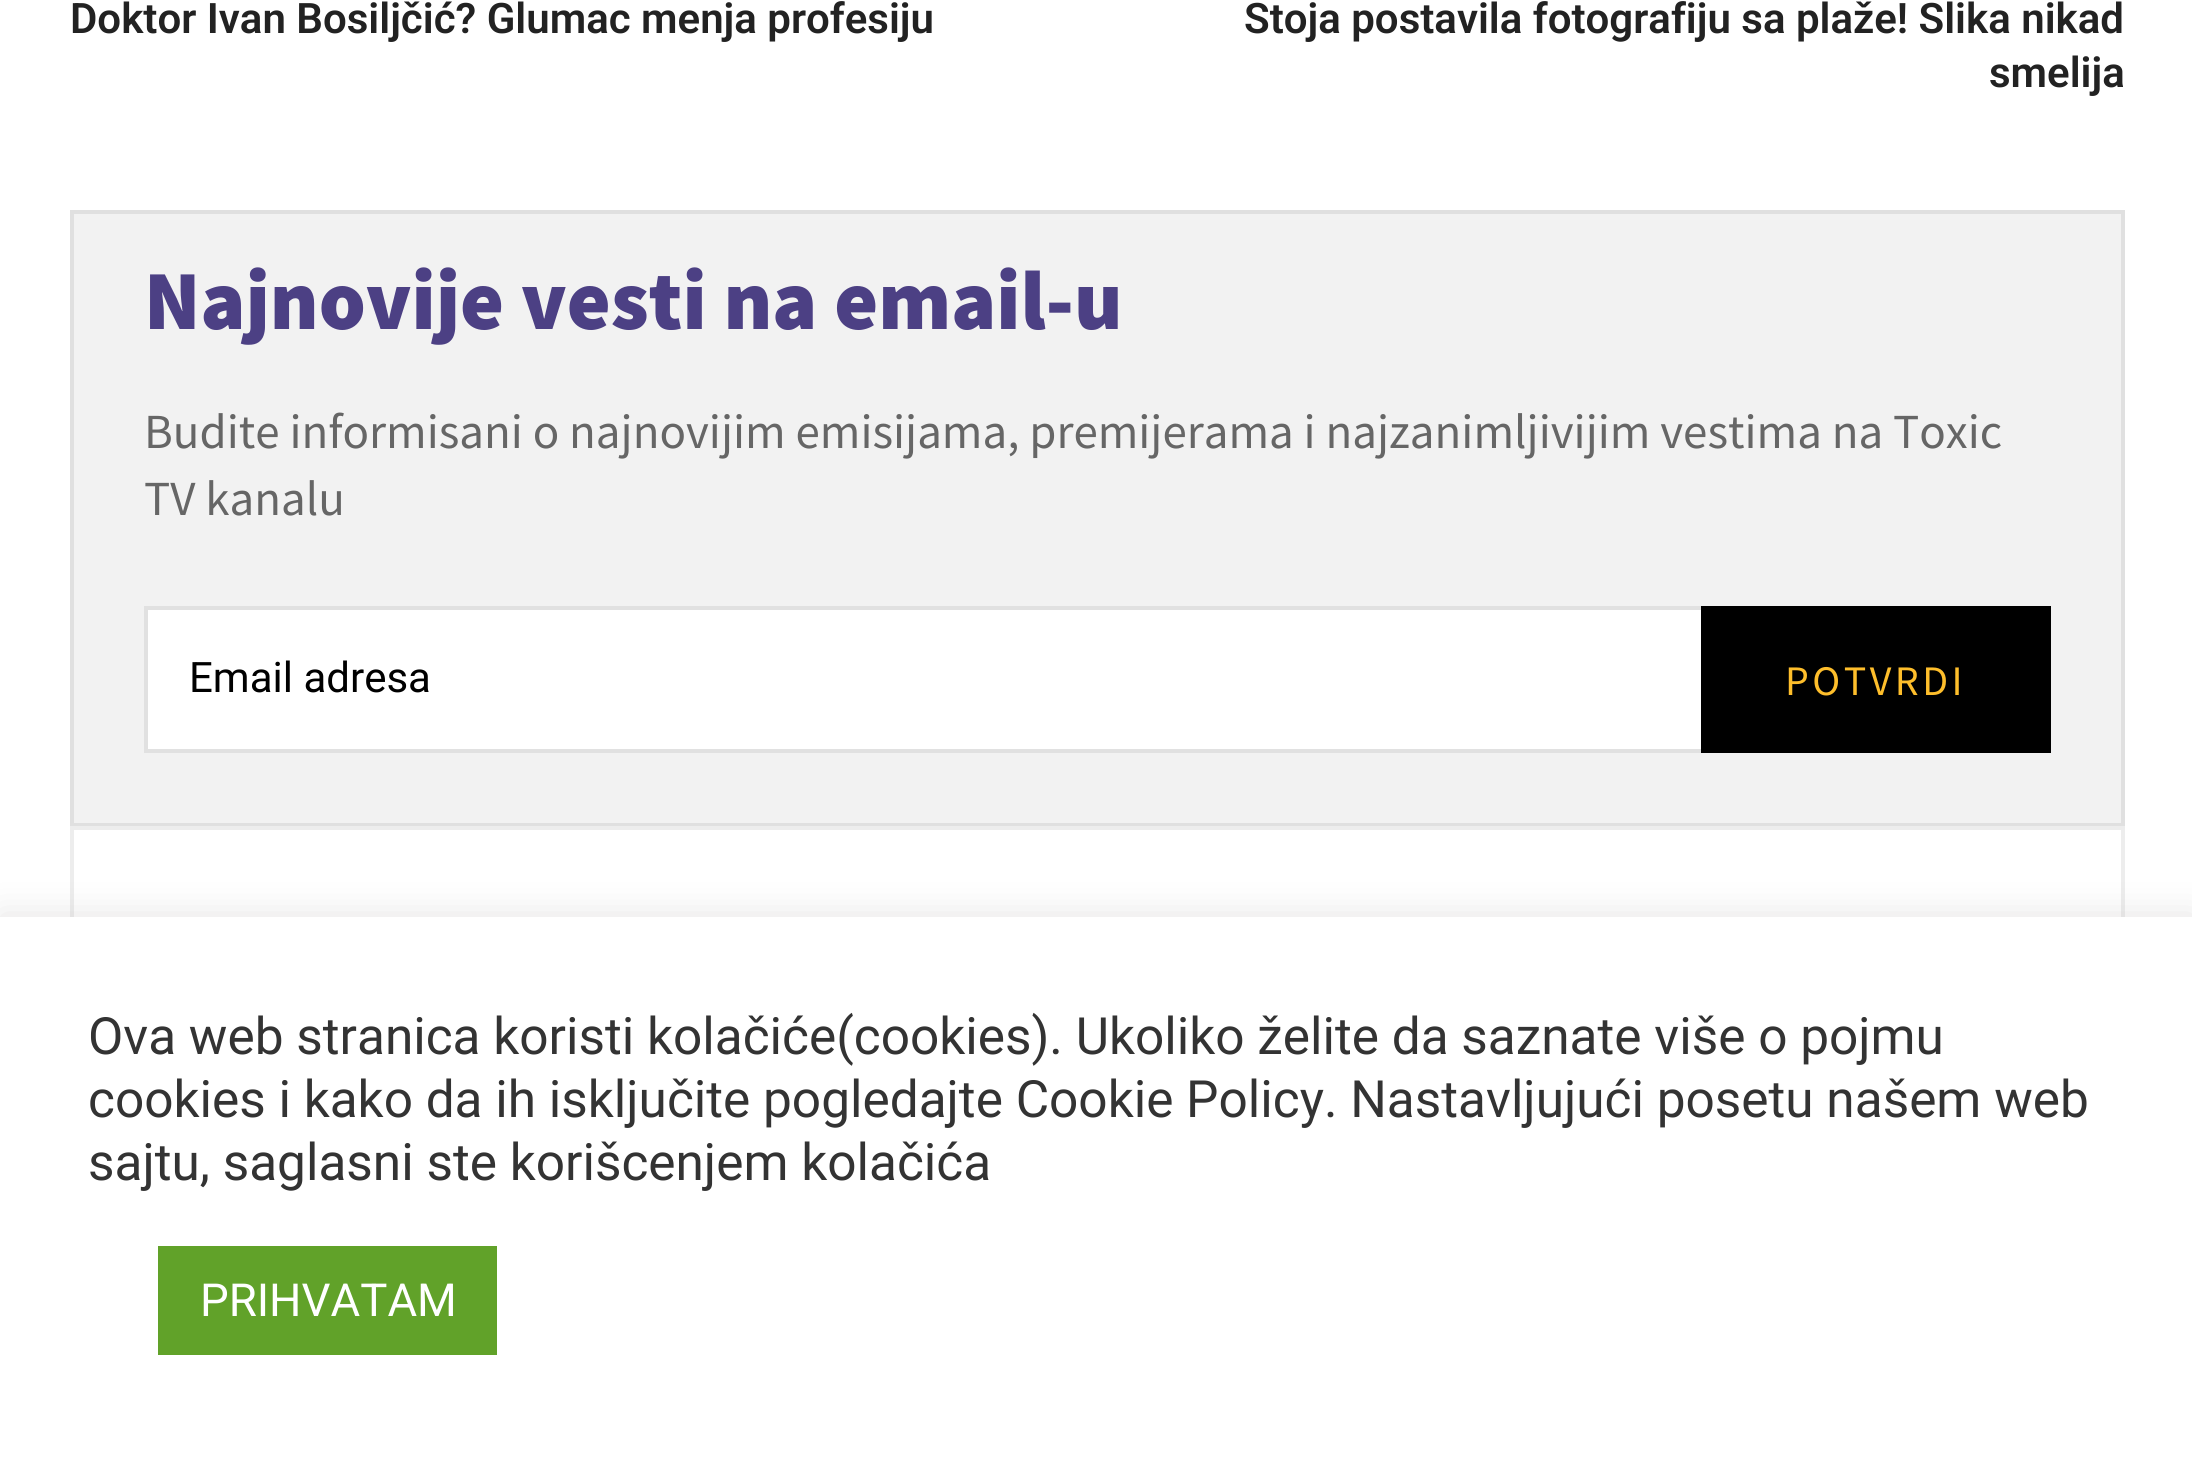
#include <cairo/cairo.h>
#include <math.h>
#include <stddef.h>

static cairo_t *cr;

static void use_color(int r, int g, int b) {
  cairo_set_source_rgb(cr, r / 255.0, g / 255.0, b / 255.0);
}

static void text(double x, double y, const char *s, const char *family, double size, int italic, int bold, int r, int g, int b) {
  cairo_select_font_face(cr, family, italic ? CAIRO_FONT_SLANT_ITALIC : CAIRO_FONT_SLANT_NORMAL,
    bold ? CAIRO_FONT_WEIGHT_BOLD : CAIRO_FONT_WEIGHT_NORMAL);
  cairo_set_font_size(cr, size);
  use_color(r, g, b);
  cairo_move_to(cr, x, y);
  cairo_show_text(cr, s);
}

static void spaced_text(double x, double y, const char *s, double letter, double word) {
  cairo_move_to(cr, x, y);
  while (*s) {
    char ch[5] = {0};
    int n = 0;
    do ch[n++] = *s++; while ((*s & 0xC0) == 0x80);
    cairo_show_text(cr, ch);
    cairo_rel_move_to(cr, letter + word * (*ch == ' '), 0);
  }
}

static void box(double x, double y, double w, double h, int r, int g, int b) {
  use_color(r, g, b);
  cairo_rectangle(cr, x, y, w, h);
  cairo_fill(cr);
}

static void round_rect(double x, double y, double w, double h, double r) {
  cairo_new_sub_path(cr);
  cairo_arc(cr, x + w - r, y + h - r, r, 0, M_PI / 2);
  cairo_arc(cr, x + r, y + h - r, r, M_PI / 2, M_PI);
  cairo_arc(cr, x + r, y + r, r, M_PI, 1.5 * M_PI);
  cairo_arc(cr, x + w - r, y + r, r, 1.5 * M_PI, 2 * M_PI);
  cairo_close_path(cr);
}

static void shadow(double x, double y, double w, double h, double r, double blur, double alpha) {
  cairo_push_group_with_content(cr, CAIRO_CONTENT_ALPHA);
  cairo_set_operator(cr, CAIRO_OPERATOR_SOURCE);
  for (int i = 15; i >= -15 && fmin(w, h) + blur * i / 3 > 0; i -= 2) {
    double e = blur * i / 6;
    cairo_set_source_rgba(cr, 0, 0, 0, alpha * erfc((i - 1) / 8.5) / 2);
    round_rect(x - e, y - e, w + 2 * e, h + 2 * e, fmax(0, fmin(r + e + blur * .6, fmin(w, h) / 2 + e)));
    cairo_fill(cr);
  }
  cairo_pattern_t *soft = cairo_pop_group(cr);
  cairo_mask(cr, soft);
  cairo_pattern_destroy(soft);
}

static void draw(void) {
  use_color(255, 255, 255);
  cairo_paint(cr);
  cairo_rectangle(cr, 72, 212, 2051, 612);
  use_color(224, 224, 224);
  cairo_set_line_width(cr, 4);
  cairo_stroke(cr);
  box(74, 214, 2047, 609, 242, 242, 242);
  box(148, 610, 1553, 139, 255, 255, 255);
  box(144, 606, 1557, 4, 225, 225, 225);
  box(144, 749, 1557, 4, 225, 225, 225);
  box(144, 606, 4, 147, 225, 225, 225);
  box(1701, 606, 350, 147, 0, 0, 0);
  cairo_rectangle(cr, 72, 828, 2051, 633);
  use_color(237, 237, 237);
  cairo_stroke(cr);
  use_color(172, 171, 171);
  shadow(0, 914, 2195, 542, 0, 17.5, 0.3);
  box(0, 917, 2192, 542, 255, 255, 255);
  box(158, 1246, 339, 109, 97, 162, 41);
  text(70, 33, "Doktor Ivan Bosiljčić? Glumac menja profesiju", "Roboto SemiBold", 42, 0, 0, 34, 34, 34);
  text(1244, 33, "Stoja postavila fotografiju sa plaže! Slika nikad", "Roboto SemiBold", 42, 0, 0, 34, 34, 34);
  text(1989, 87, "smelija", "Roboto SemiBold", 42, 0, 0, 34, 34, 34);
  text(144, 329, "Najnovije vesti na email-u", "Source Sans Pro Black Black", 84, 0, 0, 76, 64, 132);
  text(144, 448, "Budite informisani o najnovijim emisijama, premijerama i najzanimljivijim vestima na Toxic", "Source Sans Pro", 49, 0, 0, 102, 102, 102);
  text(144, 515, "TV kanalu", "Source Sans Pro", 49, 0, 0, 102, 102, 102);
  text(189, 692, "Email adresa", "Roboto", 42, 0, 0, 0, 0, 0);
  cairo_select_font_face(cr, "Source Sans Pro", CAIRO_FONT_SLANT_NORMAL, CAIRO_FONT_WEIGHT_NORMAL);
  use_color(254, 190, 43);
  spaced_text(1785, 695, "POTVRDI", 3.5, 0);
  text(88, 1054, "Ova web stranica koristi kolačiće(cookies). Ukoliko želite da saznate više o pojmu", "Roboto", 51.35, 0, 0, 51, 51, 51);
  text(88, 1117, "cookies i kako da ih isključite pogledajte Cookie Policy. Nastavljujući posetu našem web", "Roboto", 51.35, 0, 0, 51, 51, 51);
  text(88, 1180, "sajtu, saglasni ste korišcenjem kolačića", "Roboto", 51.35, 0, 0, 51, 51, 51);
  text(200, 1316, "PRIHVATAM", "Roboto", 45.5, 0, 0, 255, 255, 255);
}

int main(void) {
  cairo_surface_t *surface = cairo_image_surface_create(CAIRO_FORMAT_RGB24, 2192, 1459);
  cr = cairo_create(surface);
  cairo_font_options_t *options = cairo_font_options_create();
  cairo_font_options_set_hint_metrics(options, CAIRO_HINT_METRICS_OFF);
  cairo_font_options_set_hint_style(options, CAIRO_HINT_STYLE_NONE);
  cairo_set_font_options(cr, options);
  cairo_set_miter_limit(cr, 4);
  draw();
  cairo_surface_write_to_png(surface, "out.png");
  cairo_font_options_destroy(options);
  cairo_destroy(cr);
  cairo_surface_destroy(surface);
  return 0;
}
